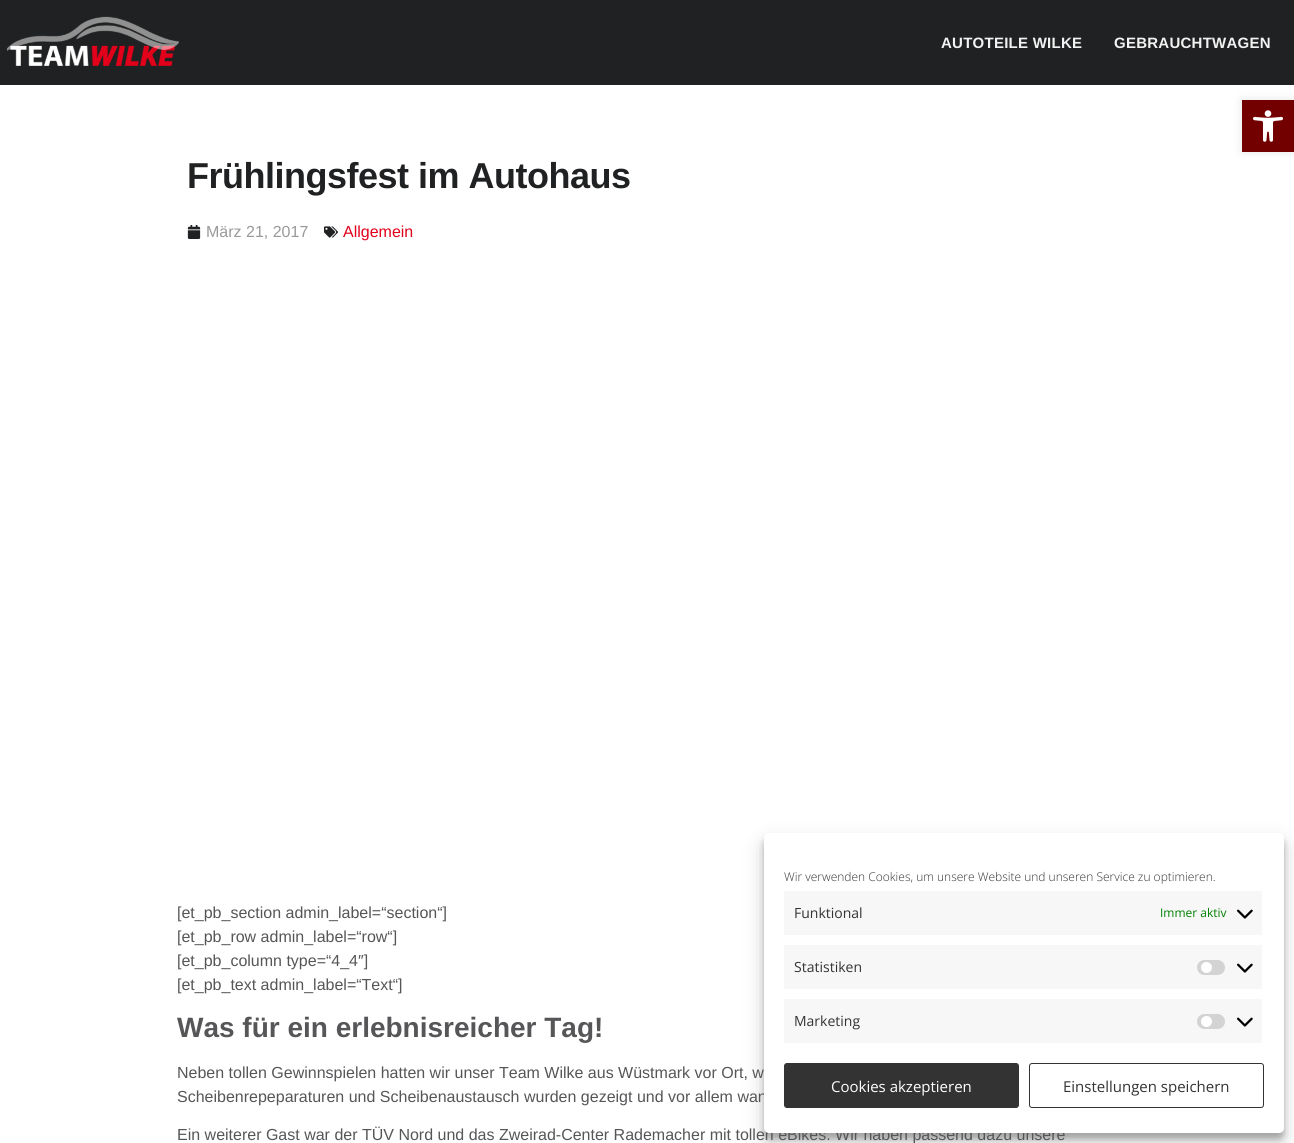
#include <cairo/cairo.h>
#include <math.h>
#include <stddef.h>

static cairo_t *cr;

static void use_color(int r, int g, int b) {
  cairo_set_source_rgb(cr, r / 255.0, g / 255.0, b / 255.0);
}

static void text(double x, double y, const char *s, const char *family, double size, int italic, int bold, int r, int g, int b) {
  cairo_select_font_face(cr, family, italic ? CAIRO_FONT_SLANT_ITALIC : CAIRO_FONT_SLANT_NORMAL,
    bold ? CAIRO_FONT_WEIGHT_BOLD : CAIRO_FONT_WEIGHT_NORMAL);
  cairo_set_font_size(cr, size);
  use_color(r, g, b);
  cairo_move_to(cr, x, y);
  cairo_show_text(cr, s);
}

static void spaced_text(double x, double y, const char *s, double letter, double word) {
  cairo_move_to(cr, x, y);
  while (*s) {
    char ch[5] = {0};
    int n = 0;
    do ch[n++] = *s++; while ((*s & 0xC0) == 0x80);
    cairo_show_text(cr, ch);
    cairo_rel_move_to(cr, letter + word * (*ch == ' '), 0);
  }
}

static void box(double x, double y, double w, double h, int r, int g, int b) {
  use_color(r, g, b);
  cairo_rectangle(cr, x, y, w, h);
  cairo_fill(cr);
}

static void round_rect(double x, double y, double w, double h, double r) {
  cairo_new_sub_path(cr);
  cairo_arc(cr, x + w - r, y + h - r, r, 0, M_PI / 2);
  cairo_arc(cr, x + r, y + h - r, r, M_PI / 2, M_PI);
  cairo_arc(cr, x + r, y + r, r, M_PI, 1.5 * M_PI);
  cairo_arc(cr, x + w - r, y + r, r, 1.5 * M_PI, 2 * M_PI);
  cairo_close_path(cr);
}

static void shadow(double x, double y, double w, double h, double r, double blur, double alpha) {
  cairo_push_group_with_content(cr, CAIRO_CONTENT_ALPHA);
  cairo_set_operator(cr, CAIRO_OPERATOR_SOURCE);
  for (int i = 15; i >= -15 && fmin(w, h) + blur * i / 3 > 0; i -= 2) {
    double e = blur * i / 6;
    cairo_set_source_rgba(cr, 0, 0, 0, alpha * erfc((i - 1) / 8.5) / 2);
    round_rect(x - e, y - e, w + 2 * e, h + 2 * e, fmax(0, fmin(r + e + blur * .6, fmin(w, h) / 2 + e)));
    cairo_fill(cr);
  }
  cairo_pattern_t *soft = cairo_pop_group(cr);
  cairo_mask(cr, soft);
  cairo_pattern_destroy(soft);
}

static void picture(const char *path, double x, double y, double w, double h) {
  cairo_surface_t *image = cairo_image_surface_create_from_png(path);
  cairo_save(cr);
  cairo_set_source_surface(cr, image, x, y);
  cairo_rectangle(cr, x, y, w, h);
  cairo_fill(cr);
  cairo_restore(cr);
  cairo_surface_destroy(image);
}

static void draw(void) {
  use_color(255, 255, 255);
  cairo_paint(cr);
  box(0, 0, 1294, 85, 32, 33, 34);
  picture("img_01.png", 7, 16, 172, 50);
  use_color(0, 0, 0);
  shadow(1242, 100, 52, 52, 0, 5, 0.1);
  box(1242, 100, 52, 52, 114, 0, 0);
  picture("img_02.png", 1253, 110, 30, 32);
  picture("img_03.png", 187, 225, 14, 14);
  picture("img_04.png", 324, 226, 14, 12);
  use_color(0, 0, 0);
  shadow(764, 839, 520, 300, 5, 3, 0.23);
  shadow(764, 843, 520, 300, 5, 10, 0.19);
  cairo_select_font_face(cr, "Liberation Sans", CAIRO_FONT_SLANT_NORMAL, CAIRO_FONT_WEIGHT_BOLD);
  cairo_set_font_size(cr, 15);
  use_color(242, 242, 242);
  spaced_text(941, 48, "AUTOTEILE WILKE", 0.25, 0);
  spaced_text(1114, 48, "GEBRAUCHTWAGEN", 0.25, 0);
  cairo_set_font_size(cr, 36);
  use_color(32, 33, 34);
  spaced_text(187, 188, "Frühlingsfest im Autohaus", -0.5, 0);
  text(206, 237, "März 21, 2017", "Liberation Sans", 16, 0, 0, 153, 153, 153);
  text(343, 237, "Allgemein", "Liberation Sans", 16, 0, 0, 226, 0, 26);
  text(177, 918, "[et_pb_section admin_label=“section“]", "Liberation Sans", 16, 0, 0, 86, 86, 89);
  text(177, 942, "[et_pb_row admin_label=“row“]", "Liberation Sans", 16, 0, 0, 86, 86, 89);
  text(177, 966, "[et_pb_column type=“4_4″]", "Liberation Sans", 16, 0, 0, 86, 86, 89);
  text(177, 990, "[et_pb_text admin_label=“Text“]", "Liberation Sans", 16, 0, 0, 86, 86, 89);
  text(177, 1037, "Was für ein erlebnisreicher Tag!", "Liberation Sans", 28, 0, 1, 86, 86, 89);
  text(177, 1078, "Neben tollen Gewinnspielen hatten wir unser Team Wilke aus Wüstmark vor Ort, w", "Liberation Sans", 16, 0, 0, 86, 86, 89);
  text(177, 1102, "Scheibenrepeparaturen und Scheibenaustausch wurden gezeigt und vor allem wan", "Liberation Sans", 16, 0, 0, 86, 86, 89);
  text(177, 1140, "Ein weiterer Gast war der TÜV Nord und das Zweirad-Center Rademacher mit tollen eBikes. Wir haben passend dazu unsere", "Liberation Sans", 16, 0, 0, 86, 86, 89);
  use_color(255, 255, 255);
  round_rect(764, 833, 520, 300, 5);
  cairo_fill(cr);
  text(784, 881, "Wir verwenden Cookies, um unsere Website und unseren Service zu optimieren.", "Open Sans Light", 12, 0, 0, 51, 51, 51);
  box(784, 891, 478, 44, 247, 247, 247);
  text(794, 918, "Funktional", "Open Sans", 14, 0, 0, 51, 51, 51);
  text(1160, 917, "Immer aktiv", "Open Sans", 12, 0, 0, 0, 128, 0);
  picture("img_05.png", 1237, 909, 16, 10);
  box(784, 945, 478, 44, 247, 247, 247);
  text(794, 972, "Statistiken", "Open Sans", 14, 0, 0, 51, 51, 51);
  use_color(211, 211, 211);
  round_rect(1197, 960, 28, 15, 7.5);
  cairo_fill(cr);
  use_color(255, 255, 255);
  cairo_arc(cr, 1206.5, 967.5, 5.5, 0, 2 * M_PI);
  cairo_fill(cr);
  picture("img_05.png", 1237, 963, 16, 10);
  box(784, 999, 478, 44, 247, 247, 247);
  text(794, 1026, "Marketing", "Open Sans", 14, 0, 0, 51, 51, 51);
  use_color(211, 211, 211);
  round_rect(1197, 1014, 28, 15, 7.5);
  cairo_fill(cr);
  use_color(255, 255, 255);
  cairo_arc(cr, 1206.5, 1021.5, 5.5, 0, 2 * M_PI);
  cairo_fill(cr);
  picture("img_05.png", 1237, 1017, 16, 10);
  use_color(51, 51, 51);
  round_rect(784.5, 1063.5, 234, 44, 2.5);
  cairo_fill_preserve(cr);
  cairo_set_line_width(cr, 1);
  cairo_stroke(cr);
  text(831, 1092, "Cookies akzeptieren", "Open Sans", 15, 0, 0, 255, 255, 255);
  round_rect(1029.5, 1063.5, 234, 44, 2.5);
  use_color(51, 51, 51);
  cairo_stroke(cr);
  text(1063, 1092, "Einstellungen speichern", "Open Sans", 15, 0, 0, 51, 51, 51);
}

int main(void) {
  cairo_surface_t *surface = cairo_image_surface_create(CAIRO_FORMAT_RGB24, 1294, 1143);
  cr = cairo_create(surface);
  cairo_font_options_t *options = cairo_font_options_create();
  cairo_font_options_set_hint_metrics(options, CAIRO_HINT_METRICS_OFF);
  cairo_font_options_set_hint_style(options, CAIRO_HINT_STYLE_NONE);
  cairo_set_font_options(cr, options);
  cairo_set_miter_limit(cr, 4);
  draw();
  cairo_surface_write_to_png(surface, "out.png");
  cairo_font_options_destroy(options);
  cairo_destroy(cr);
  cairo_surface_destroy(surface);
  return 0;
}
